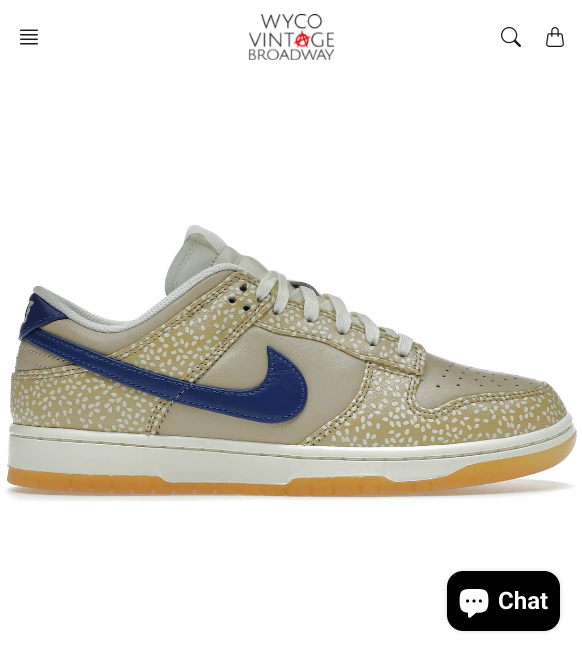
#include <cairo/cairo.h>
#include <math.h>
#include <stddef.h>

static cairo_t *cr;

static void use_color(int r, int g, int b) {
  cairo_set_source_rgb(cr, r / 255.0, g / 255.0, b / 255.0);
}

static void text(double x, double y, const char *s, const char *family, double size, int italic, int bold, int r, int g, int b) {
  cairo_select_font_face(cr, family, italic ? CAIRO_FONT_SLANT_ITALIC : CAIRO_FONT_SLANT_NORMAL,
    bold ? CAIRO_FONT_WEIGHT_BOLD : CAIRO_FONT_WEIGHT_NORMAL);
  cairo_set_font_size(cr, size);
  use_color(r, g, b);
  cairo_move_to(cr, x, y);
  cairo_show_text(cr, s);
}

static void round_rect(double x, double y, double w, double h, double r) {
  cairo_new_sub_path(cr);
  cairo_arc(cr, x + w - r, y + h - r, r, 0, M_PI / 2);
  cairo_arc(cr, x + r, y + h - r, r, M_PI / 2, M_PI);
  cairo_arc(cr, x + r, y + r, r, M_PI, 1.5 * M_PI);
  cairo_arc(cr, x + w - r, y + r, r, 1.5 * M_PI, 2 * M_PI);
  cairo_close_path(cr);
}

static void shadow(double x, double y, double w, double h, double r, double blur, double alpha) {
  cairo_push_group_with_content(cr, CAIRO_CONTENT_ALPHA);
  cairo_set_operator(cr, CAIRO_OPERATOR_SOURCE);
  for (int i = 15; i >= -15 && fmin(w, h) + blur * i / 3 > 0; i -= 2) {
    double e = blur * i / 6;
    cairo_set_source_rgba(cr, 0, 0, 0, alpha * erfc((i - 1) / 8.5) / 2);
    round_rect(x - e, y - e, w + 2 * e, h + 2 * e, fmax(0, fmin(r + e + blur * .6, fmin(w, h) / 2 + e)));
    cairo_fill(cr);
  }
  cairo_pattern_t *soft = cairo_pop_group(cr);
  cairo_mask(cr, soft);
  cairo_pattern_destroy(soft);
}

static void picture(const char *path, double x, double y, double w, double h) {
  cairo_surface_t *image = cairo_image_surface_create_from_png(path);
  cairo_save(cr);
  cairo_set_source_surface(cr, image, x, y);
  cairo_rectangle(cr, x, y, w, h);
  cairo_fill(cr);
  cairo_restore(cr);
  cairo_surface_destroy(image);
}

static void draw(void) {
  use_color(255, 255, 255);
  cairo_paint(cr);
  picture("img_01.png", 20, 29, 18, 16);
  picture("img_02.png", 248, 14, 86, 46);
  picture("img_03.png", 501, 27, 20, 20);
  picture("img_04.png", 546, 27, 18, 20);
  picture("img_05.png", 3, 225, 574, 278);
  use_color(0, 0, 0);
  shadow(447, 571, 113, 60, 16, 2.5, 0.15);
  use_color(0, 0, 0);
  round_rect(447, 571, 113, 60, 16);
  cairo_fill(cr);
  picture("img_06.png", 459, 589, 30, 29);
  text(498, 609, "Chat", "Roboto", 24, 0, 1, 255, 255, 255);
}

int main(void) {
  cairo_surface_t *surface = cairo_image_surface_create(CAIRO_FORMAT_RGB24, 582, 652);
  cr = cairo_create(surface);
  cairo_font_options_t *options = cairo_font_options_create();
  cairo_font_options_set_hint_metrics(options, CAIRO_HINT_METRICS_OFF);
  cairo_font_options_set_hint_style(options, CAIRO_HINT_STYLE_NONE);
  cairo_set_font_options(cr, options);
  cairo_set_miter_limit(cr, 4);
  draw();
  cairo_surface_write_to_png(surface, "out.png");
  cairo_font_options_destroy(options);
  cairo_destroy(cr);
  cairo_surface_destroy(surface);
  return 0;
}
